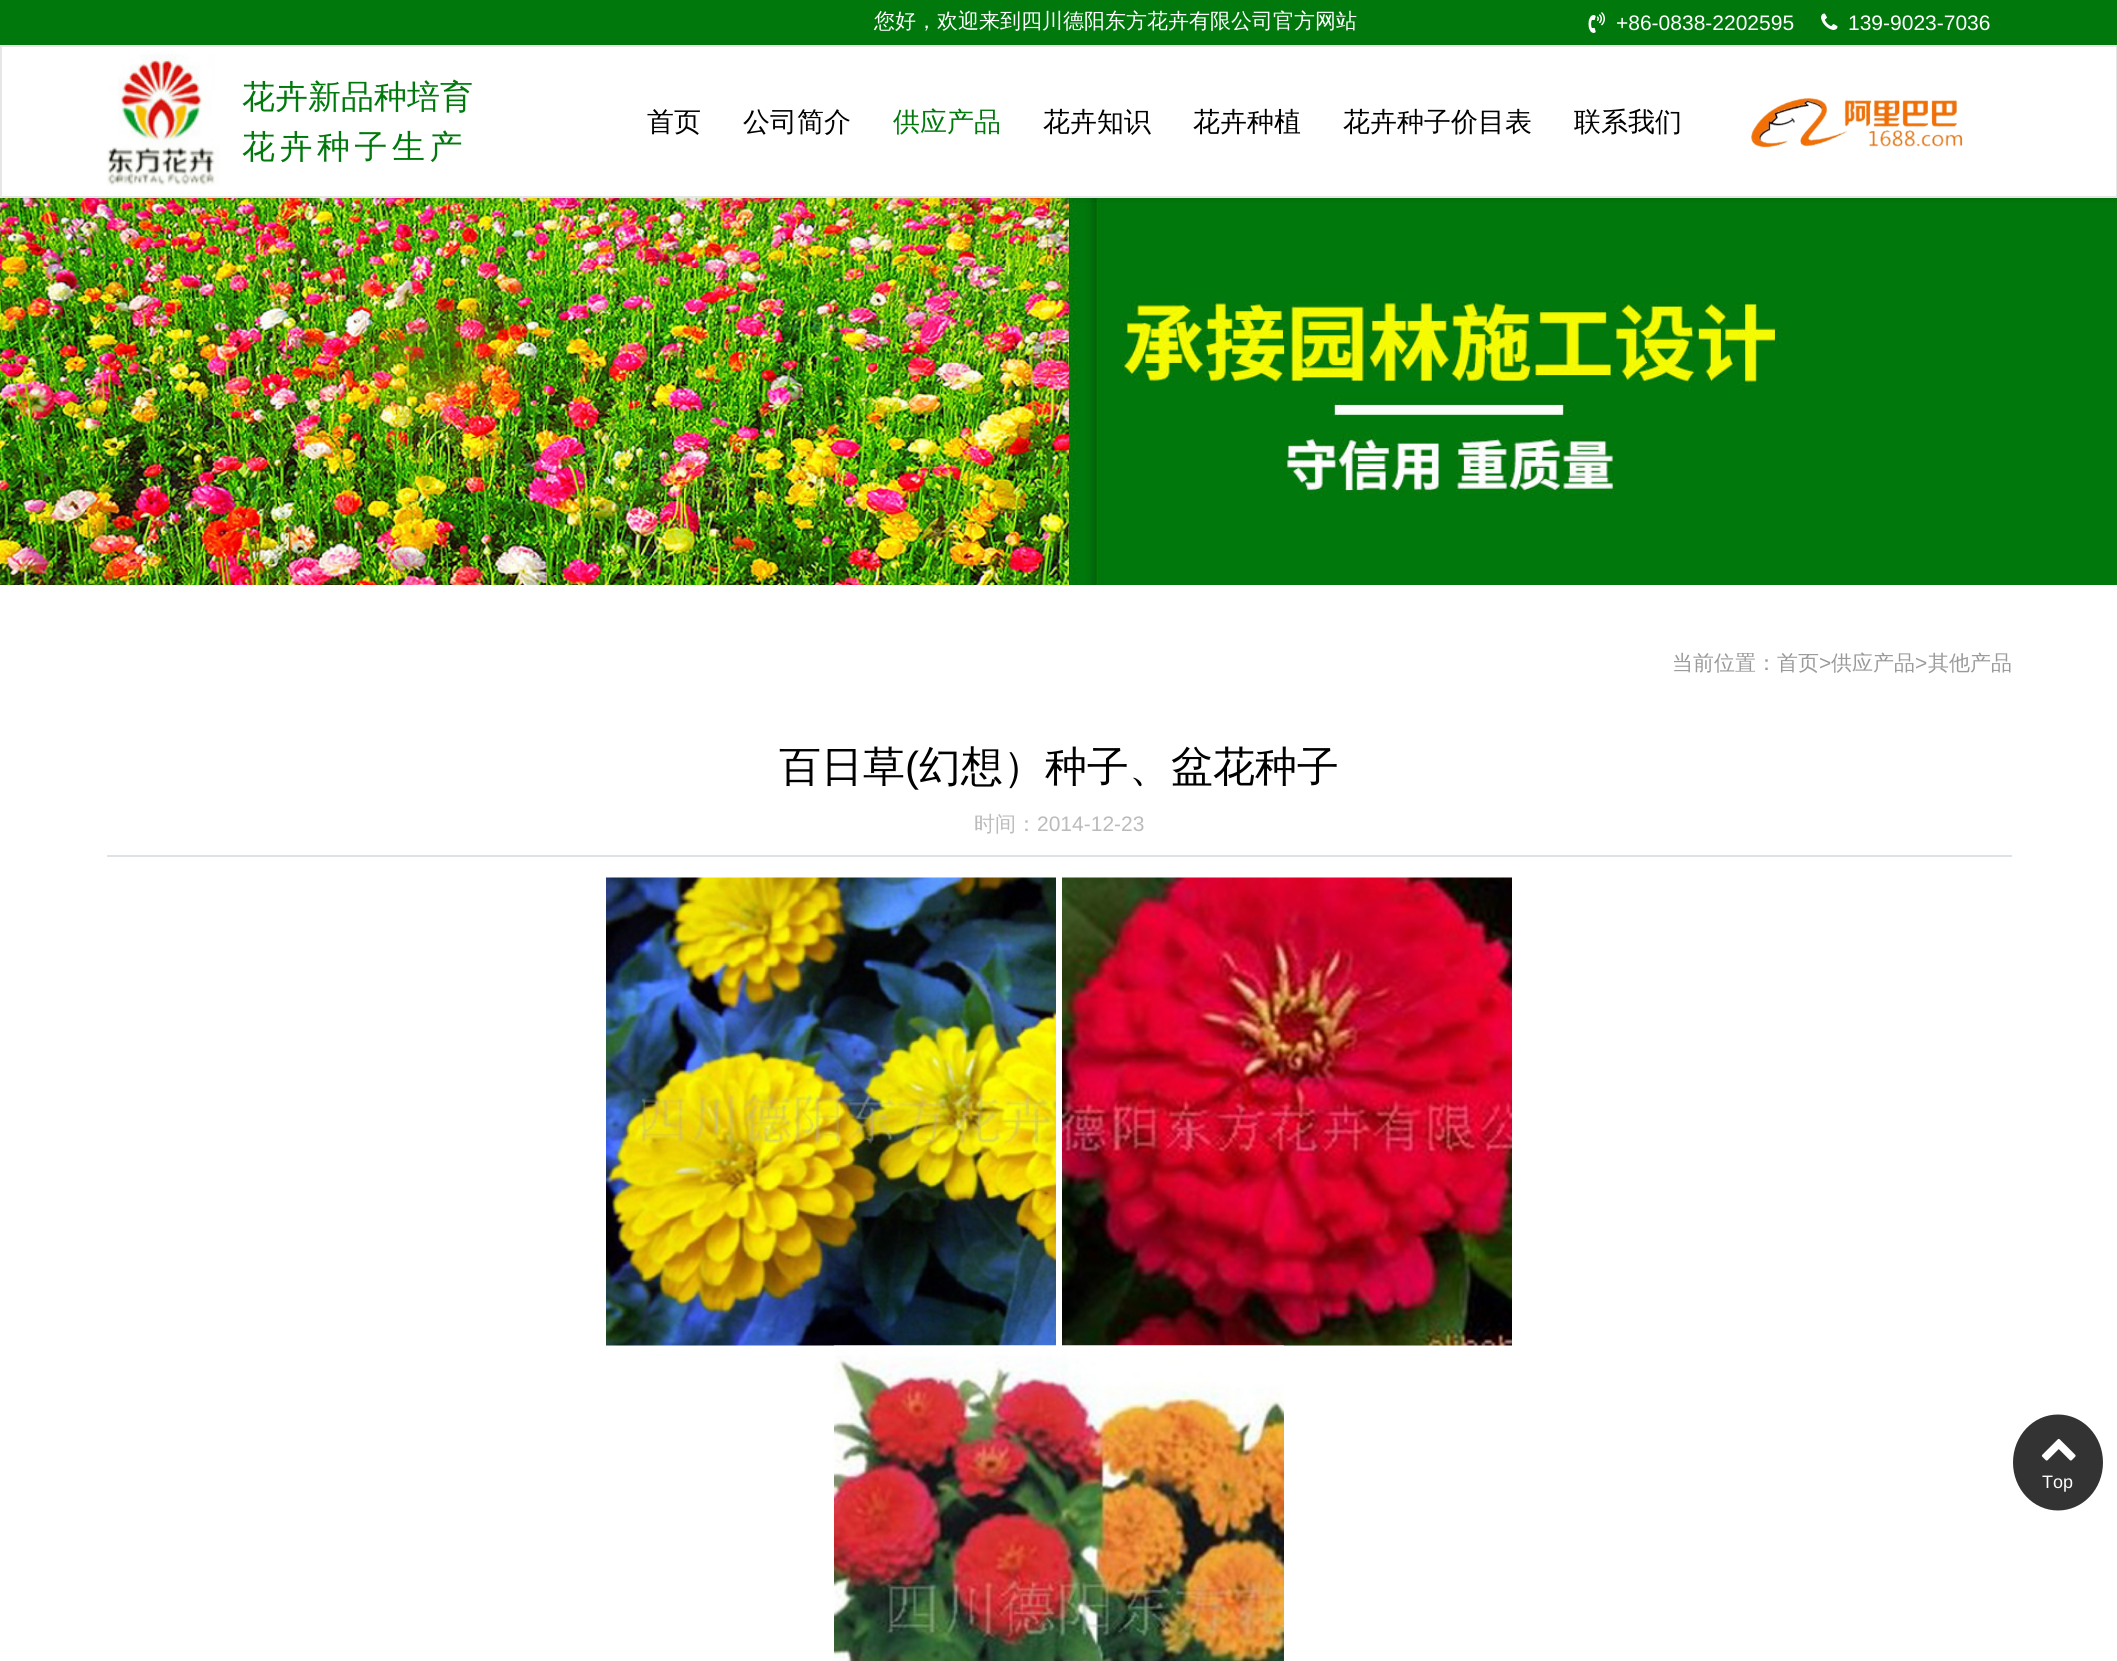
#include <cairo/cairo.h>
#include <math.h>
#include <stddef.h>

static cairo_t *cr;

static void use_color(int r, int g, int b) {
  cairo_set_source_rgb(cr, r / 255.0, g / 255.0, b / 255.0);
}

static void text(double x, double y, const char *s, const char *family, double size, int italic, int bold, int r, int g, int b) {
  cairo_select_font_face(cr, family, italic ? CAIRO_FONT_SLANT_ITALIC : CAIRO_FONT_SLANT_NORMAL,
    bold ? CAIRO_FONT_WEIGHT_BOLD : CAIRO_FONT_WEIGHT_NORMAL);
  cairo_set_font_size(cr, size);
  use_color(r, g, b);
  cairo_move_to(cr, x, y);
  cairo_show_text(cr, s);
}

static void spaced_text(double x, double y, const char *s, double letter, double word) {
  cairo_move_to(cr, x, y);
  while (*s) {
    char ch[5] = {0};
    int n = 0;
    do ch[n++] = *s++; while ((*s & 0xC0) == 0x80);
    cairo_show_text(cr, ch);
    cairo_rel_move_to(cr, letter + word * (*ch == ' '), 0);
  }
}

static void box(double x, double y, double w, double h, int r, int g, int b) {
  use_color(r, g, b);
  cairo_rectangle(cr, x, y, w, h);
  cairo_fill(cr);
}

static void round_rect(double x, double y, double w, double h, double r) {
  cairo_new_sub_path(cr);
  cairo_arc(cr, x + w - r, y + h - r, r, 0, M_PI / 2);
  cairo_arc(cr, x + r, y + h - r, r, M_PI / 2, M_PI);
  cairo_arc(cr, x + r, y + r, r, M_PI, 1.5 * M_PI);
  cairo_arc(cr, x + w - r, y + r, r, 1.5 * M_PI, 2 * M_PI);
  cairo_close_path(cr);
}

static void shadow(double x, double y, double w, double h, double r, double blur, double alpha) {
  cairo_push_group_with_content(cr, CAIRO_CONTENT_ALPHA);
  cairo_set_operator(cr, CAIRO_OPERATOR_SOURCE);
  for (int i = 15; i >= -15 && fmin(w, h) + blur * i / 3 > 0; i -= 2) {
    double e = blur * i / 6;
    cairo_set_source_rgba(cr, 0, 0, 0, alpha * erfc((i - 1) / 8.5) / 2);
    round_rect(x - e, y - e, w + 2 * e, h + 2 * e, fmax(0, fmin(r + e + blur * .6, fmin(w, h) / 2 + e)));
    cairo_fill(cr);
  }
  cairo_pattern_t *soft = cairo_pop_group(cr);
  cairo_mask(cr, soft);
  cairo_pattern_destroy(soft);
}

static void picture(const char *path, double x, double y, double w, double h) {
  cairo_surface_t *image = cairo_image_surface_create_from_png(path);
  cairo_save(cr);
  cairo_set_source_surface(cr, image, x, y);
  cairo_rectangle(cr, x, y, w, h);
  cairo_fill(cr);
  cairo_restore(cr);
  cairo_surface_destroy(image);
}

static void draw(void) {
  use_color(255, 255, 255);
  cairo_paint(cr);
  box(0, 0, 2117, 45, 0, 120, 12);
  picture("img_01.png", 1588, 12, 17, 21);
  picture("img_02.png", 1821, 13, 17, 17);
  picture("img_05.png", 0, 198, 2117, 387);
  cairo_save(cr);
  cairo_rectangle(cr, 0, 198, 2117, 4);
  cairo_clip(cr);
  use_color(0, 0, 0);
  shadow(0, 48, 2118, 153, 0, 2.5, 0.07);
  cairo_restore(cr);
  cairo_rectangle(cr, 1, 46, 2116, 151);
  use_color(230, 230, 230);
  cairo_stroke(cr);
  picture("img_03.png", 107, 54, 113, 132);
  picture("img_04.png", 1751, 98, 212, 50);
  box(107, 855, 1905, 2, 222, 226, 230);
  picture("img_06.png", 606, 877, 450, 469);
  picture("img_07.png", 1062, 877, 450, 469);
  picture("img_08.png", 834, 1345, 450, 316);
  use_color(51, 51, 51);
  cairo_new_path(cr);
  cairo_move_to(cr, 2058, 1414.5);
  cairo_curve_to(cr, 2083, 1414.5, 2103, 1436, 2103, 1462.5);
  cairo_curve_to(cr, 2103, 1489, 2083, 1510.5, 2058, 1510.5);
  cairo_curve_to(cr, 2033, 1510.5, 2013, 1489, 2013, 1462.5);
  cairo_curve_to(cr, 2013, 1436, 2033, 1414.5, 2058, 1414.5);
  cairo_close_path(cr);
  cairo_fill(cr);
  picture("img_09.png", 2041, 1438, 35, 23);
  text(874, 28, "您好，欢迎来到四川德阳东方花卉有限公司官方网站", "WenQuanYi Zen Hei Medium", 21, 0, 0, 255, 255, 255);
  text(1616, 30, "+86-0838-2202595", "Liberation Sans", 21, 0, 0, 255, 255, 255);
  text(1848, 30, "139-9023-7036", "Liberation Sans", 21, 0, 0, 255, 255, 255);
  text(242, 108, "花卉新品种培育", "WenQuanYi Zen Hei Medium", 33, 0, 0, 0, 120, 12);
  spaced_text(242, 158, "花卉种子生产", 4.5, 0);
  text(647, 131, "首页", "WenQuanYi Zen Hei Medium", 27, 0, 0, 0, 0, 0);
  text(743, 131, "公司简介", "WenQuanYi Zen Hei Medium", 27, 0, 0, 0, 0, 0);
  text(893, 131, "供应产品", "WenQuanYi Zen Hei Medium", 27, 0, 0, 0, 120, 12);
  text(1043, 131, "花卉知识", "WenQuanYi Zen Hei Medium", 27, 0, 0, 0, 0, 0);
  text(1193, 131, "花卉种植", "WenQuanYi Zen Hei Medium", 27, 0, 0, 0, 0, 0);
  text(1343, 131, "花卉种子价目表", "WenQuanYi Zen Hei Medium", 27, 0, 0, 0, 0, 0);
  text(1574, 131, "联系我们", "WenQuanYi Zen Hei Medium", 27, 0, 0, 0, 0, 0);
  text(1672, 670, "当前位置：首页", "WenQuanYi Zen Hei Medium", 21, 0, 0, 153, 153, 153);
  text(1819, 670, ">", "Liberation Sans", 21, 0, 0, 153, 153, 153);
  text(1831, 670, "供应产品", "WenQuanYi Zen Hei Medium", 21, 0, 0, 153, 153, 153);
  text(1915, 670, ">", "Liberation Sans", 21, 0, 0, 153, 153, 153);
  text(1928, 670, "其他产品", "WenQuanYi Zen Hei Medium", 21, 0, 0, 153, 153, 153);
  text(779, 781, "百日草", "WenQuanYi Zen Hei Medium", 42, 0, 0, 0, 0, 0);
  text(905, 781, "(", "Liberation Sans", 42, 0, 0, 0, 0, 0);
  text(919, 781, "幻想）种子、盆花种子", "WenQuanYi Zen Hei Medium", 42, 0, 0, 0, 0, 0);
  text(974, 831, "时间：", "WenQuanYi Zen Hei Medium", 21, 0, 0, 187, 187, 187);
  text(1037, 831, "2014-12-23", "Liberation Sans", 21, 0, 0, 187, 187, 187);
  text(2042, 1488, "Top", "Liberation Sans", 18, 0, 0, 255, 255, 255);
}

int main(void) {
  cairo_surface_t *surface = cairo_image_surface_create(CAIRO_FORMAT_RGB24, 2117, 1661);
  cr = cairo_create(surface);
  cairo_font_options_t *options = cairo_font_options_create();
  cairo_font_options_set_hint_metrics(options, CAIRO_HINT_METRICS_OFF);
  cairo_font_options_set_hint_style(options, CAIRO_HINT_STYLE_NONE);
  cairo_set_font_options(cr, options);
  cairo_set_miter_limit(cr, 4);
  draw();
  cairo_surface_write_to_png(surface, "out.png");
  cairo_font_options_destroy(options);
  cairo_destroy(cr);
  cairo_surface_destroy(surface);
  return 0;
}
